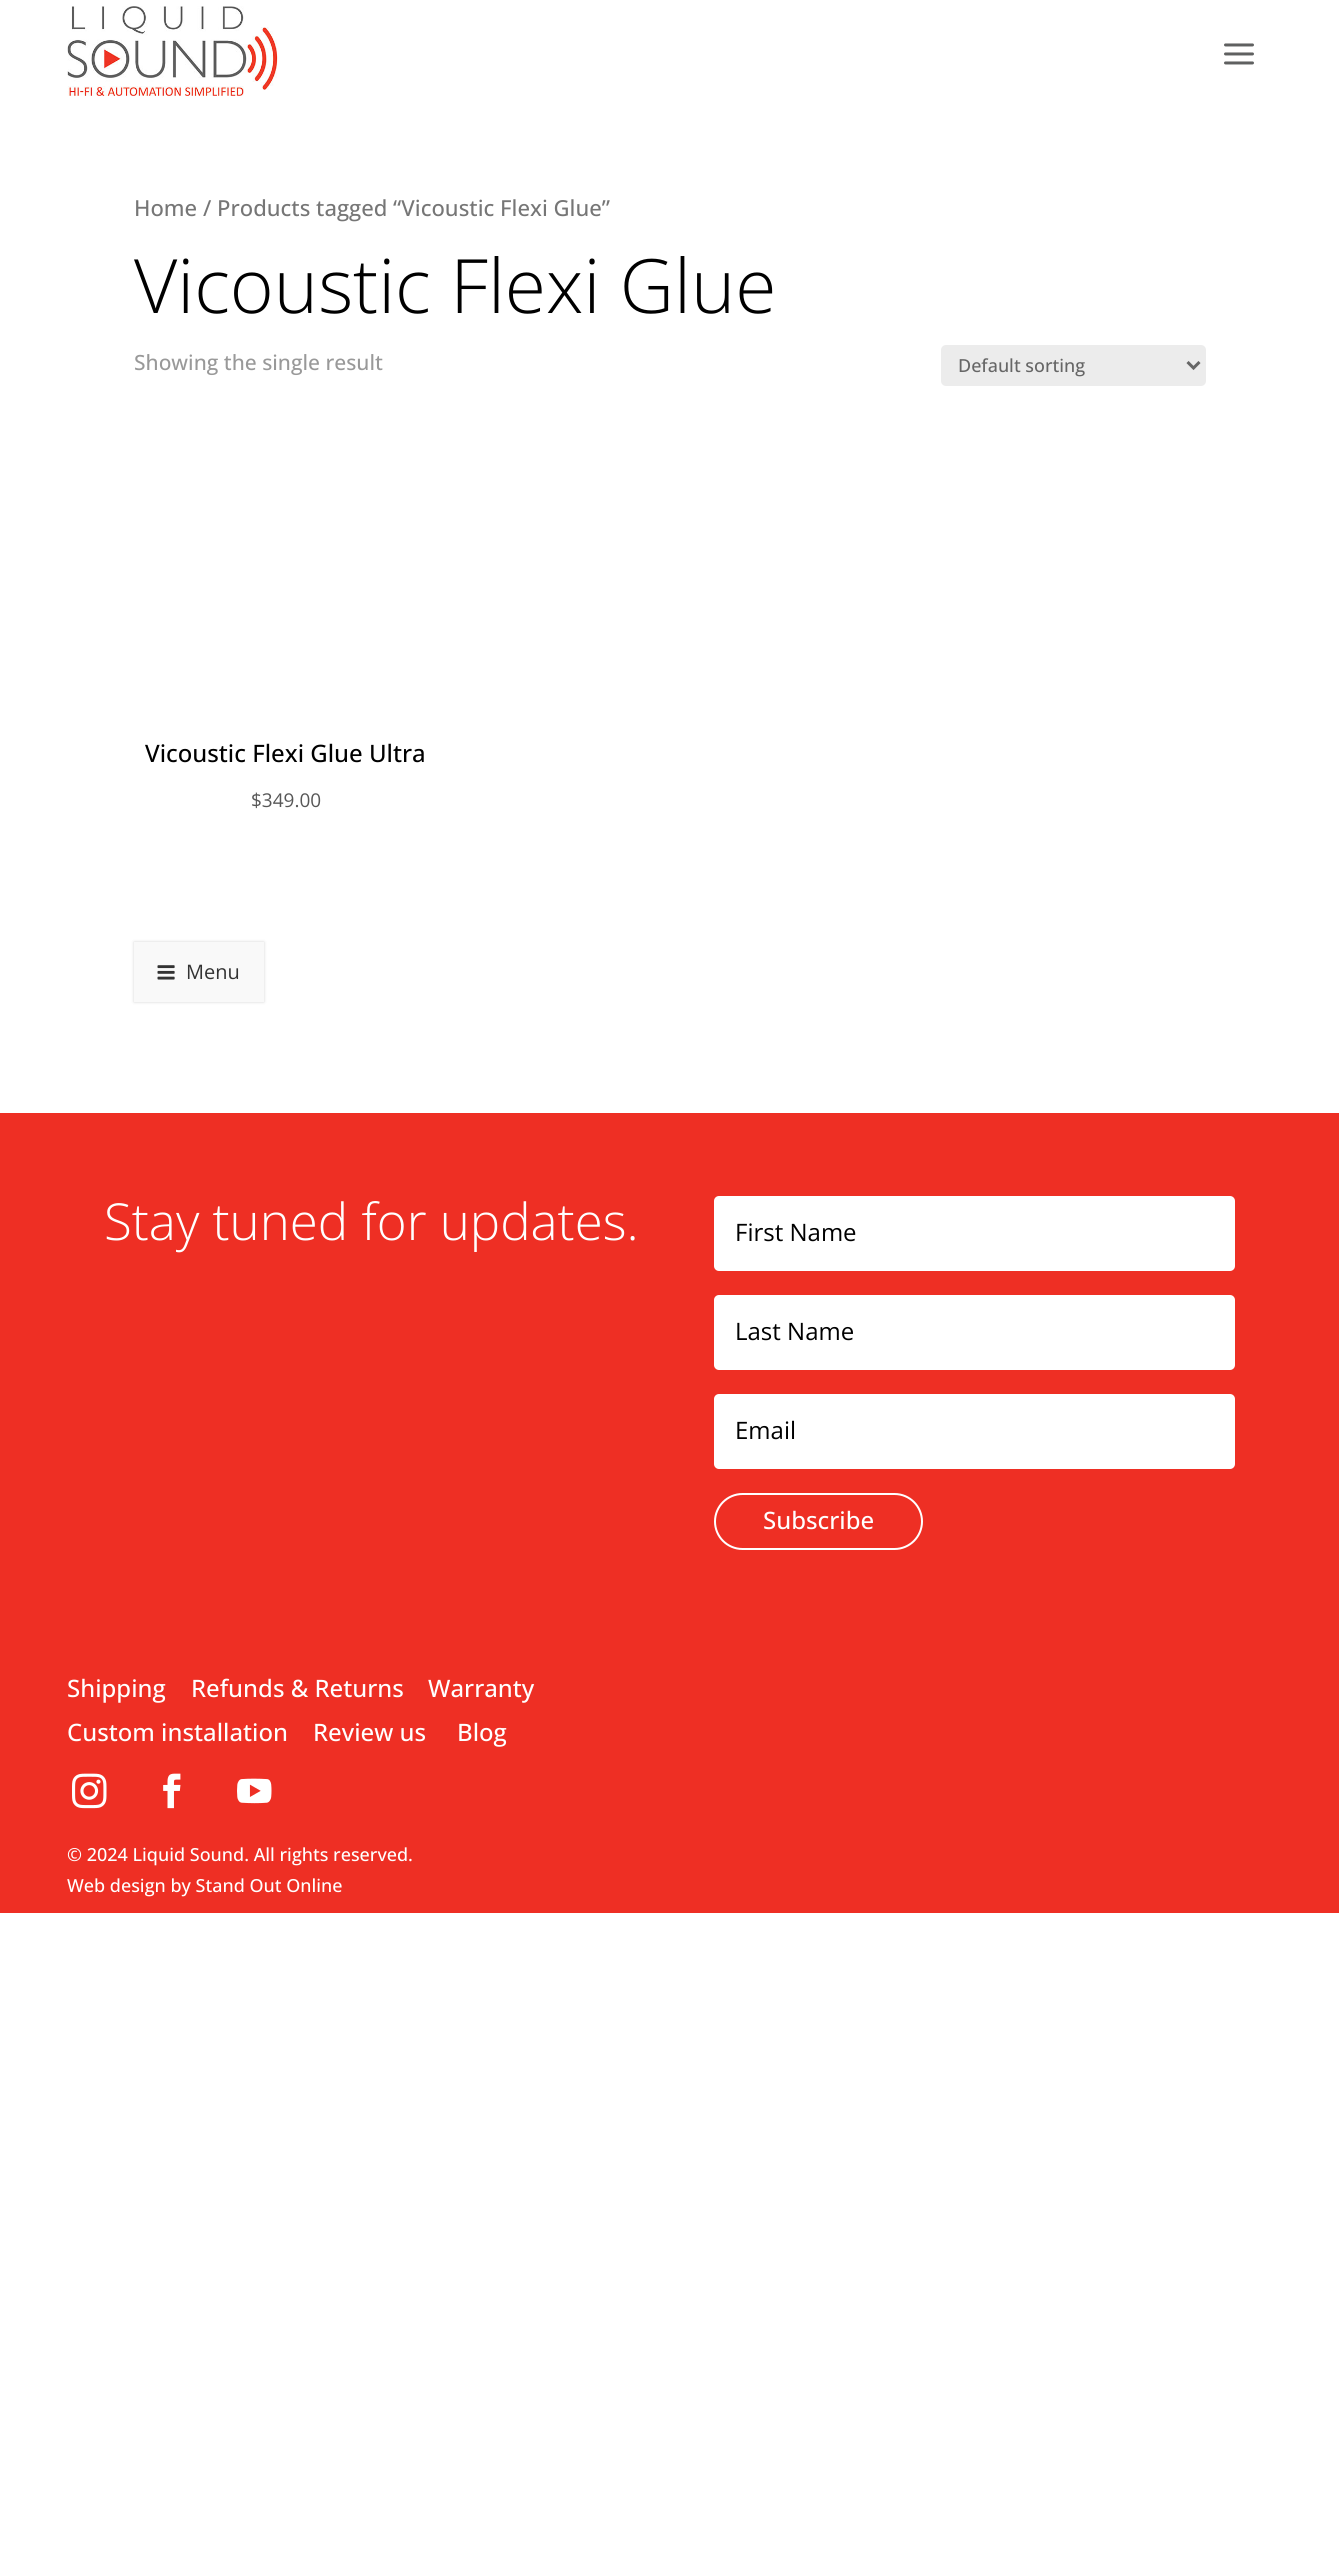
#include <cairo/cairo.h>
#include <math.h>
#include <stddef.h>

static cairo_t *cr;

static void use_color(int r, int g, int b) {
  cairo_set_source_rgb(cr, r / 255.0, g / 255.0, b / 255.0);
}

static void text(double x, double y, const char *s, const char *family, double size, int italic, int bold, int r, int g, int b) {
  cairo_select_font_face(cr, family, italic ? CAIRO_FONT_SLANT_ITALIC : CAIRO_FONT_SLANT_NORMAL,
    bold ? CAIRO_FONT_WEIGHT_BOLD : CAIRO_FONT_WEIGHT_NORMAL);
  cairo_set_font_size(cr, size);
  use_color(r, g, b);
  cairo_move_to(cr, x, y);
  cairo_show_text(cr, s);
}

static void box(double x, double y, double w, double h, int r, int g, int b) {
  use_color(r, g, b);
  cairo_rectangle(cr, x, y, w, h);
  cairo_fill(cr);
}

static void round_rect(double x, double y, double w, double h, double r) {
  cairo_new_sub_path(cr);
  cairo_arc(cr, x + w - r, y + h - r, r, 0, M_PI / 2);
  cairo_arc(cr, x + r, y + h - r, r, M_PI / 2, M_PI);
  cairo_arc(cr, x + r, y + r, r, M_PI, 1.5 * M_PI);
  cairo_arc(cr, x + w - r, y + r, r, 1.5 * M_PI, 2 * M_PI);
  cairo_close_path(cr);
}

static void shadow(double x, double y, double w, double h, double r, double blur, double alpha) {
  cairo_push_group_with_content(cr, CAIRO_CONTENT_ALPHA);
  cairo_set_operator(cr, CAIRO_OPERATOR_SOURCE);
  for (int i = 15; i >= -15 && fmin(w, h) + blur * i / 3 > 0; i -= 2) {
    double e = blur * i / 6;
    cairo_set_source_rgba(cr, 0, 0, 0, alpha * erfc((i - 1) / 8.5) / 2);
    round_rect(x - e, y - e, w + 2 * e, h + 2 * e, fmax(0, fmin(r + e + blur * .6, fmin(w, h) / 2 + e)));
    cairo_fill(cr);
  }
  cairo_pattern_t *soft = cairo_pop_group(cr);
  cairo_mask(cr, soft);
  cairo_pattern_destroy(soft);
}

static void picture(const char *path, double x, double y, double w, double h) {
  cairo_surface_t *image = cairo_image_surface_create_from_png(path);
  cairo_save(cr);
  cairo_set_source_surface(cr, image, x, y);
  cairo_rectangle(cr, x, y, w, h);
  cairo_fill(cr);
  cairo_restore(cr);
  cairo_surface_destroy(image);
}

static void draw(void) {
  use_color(255, 255, 255);
  cairo_paint(cr);
  picture("img_01.png", 67, 6, 211, 90);
  picture("img_02.png", 1224, 43, 30, 22);
  use_color(236, 236, 236);
  round_rect(941, 345, 265, 41, 5);
  cairo_fill(cr);
  cairo_new_path(cr);
  cairo_move_to(cr, 1187.5, 362);
  cairo_line_to(cr, 1193.5, 368);
  cairo_line_to(cr, 1199.5, 362);
  use_color(102, 102, 102);
  cairo_set_line_width(cr, 3);
  cairo_stroke(cr);
  use_color(0, 0, 0);
  shadow(134, 942, 130, 60, 0, 1.5, 0.17);
  box(134, 942, 130, 60, 249, 249, 249);
  picture("img_03.png", 157, 965, 18, 15);
  box(0, 1113, 1339, 800, 238, 47, 36);
  use_color(255, 255, 255);
  round_rect(714, 1196, 521, 75, 5);
  cairo_fill(cr);
  round_rect(714, 1295, 521, 75, 5);
  cairo_fill(cr);
  round_rect(714, 1394, 521, 75, 5);
  cairo_fill(cr);
  round_rect(715, 1494, 207, 55, 27.5);
  cairo_set_line_width(cr, 2);
  cairo_stroke(cr);
  picture("img_04.png", 72, 1773, 35, 36);
  picture("img_05.png", 163, 1773, 18, 36);
  picture("img_06.png", 237, 1778, 35, 26);
  text(134, 216, "Home / Products tagged “Vicoustic Flexi Glue”", "Open Sans Medium", 22.1, 0, 0, 118, 118, 118);
  text(134, 313, "Vicoustic Flexi Glue", "Open Sans Light", 75, 0, 0, 0, 0, 0);
  text(134, 370, "Showing the single result", "Open Sans Medium", 21, 0, 0, 153, 153, 153);
  text(958, 372, "Default sorting", "Open Sans Medium", 18, 0, 0, 102, 102, 102);
  text(145, 762, "Vicoustic Flexi Glue Ultra", "Open Sans Medium", 24, 0, 0, 0, 0, 0);
  text(251, 807, "$349.00", "Open Sans", 19, 0, 0, 87, 87, 87);
  text(186, 979, "Menu", "Open Sans", 20, 0, 0, 51, 51, 51);
  text(104, 1240, "Stay tuned for updates.", "Open Sans Light", 51, 0, 0, 255, 255, 255);
  text(735, 1241, "First Name", "Open Sans", 24, 0, 0, 0, 0, 0);
  text(735, 1340, "Last Name", "Open Sans", 24, 0, 0, 0, 0, 0);
  text(735, 1439, "Email", "Open Sans", 24, 0, 0, 0, 0, 0);
  text(763, 1529, "Subscribe", "Open Sans Medium", 24, 0, 0, 255, 255, 255);
  text(67, 1697, "Shipping", "Open Sans Medium", 24, 0, 0, 255, 255, 255);
  text(191, 1697, "Refunds & Returns", "Open Sans Medium", 24, 0, 0, 255, 255, 255);
  text(428, 1697, "Warranty", "Open Sans Medium", 24, 0, 0, 255, 255, 255);
  text(67, 1741, "Custom installation", "Open Sans Medium", 24, 0, 0, 255, 255, 255);
  text(313, 1741, "Review us", "Open Sans Medium", 24, 0, 0, 255, 255, 255);
  text(457, 1741, "Blog", "Open Sans Medium", 24, 0, 0, 255, 255, 255);
  text(67, 1861, "© 2024 Liquid Sound. All rights reserved.", "Open Sans Medium", 18, 0, 0, 255, 255, 255);
  text(67, 1892, "Web design by Stand Out Online", "Open Sans Medium", 18, 0, 0, 255, 255, 255);
}

int main(void) {
  cairo_surface_t *surface = cairo_image_surface_create(CAIRO_FORMAT_RGB24, 1339, 2567);
  cr = cairo_create(surface);
  cairo_font_options_t *options = cairo_font_options_create();
  cairo_font_options_set_hint_metrics(options, CAIRO_HINT_METRICS_OFF);
  cairo_font_options_set_hint_style(options, CAIRO_HINT_STYLE_NONE);
  cairo_set_font_options(cr, options);
  cairo_set_miter_limit(cr, 4);
  draw();
  cairo_surface_write_to_png(surface, "out.png");
  cairo_font_options_destroy(options);
  cairo_destroy(cr);
  cairo_surface_destroy(surface);
  return 0;
}
